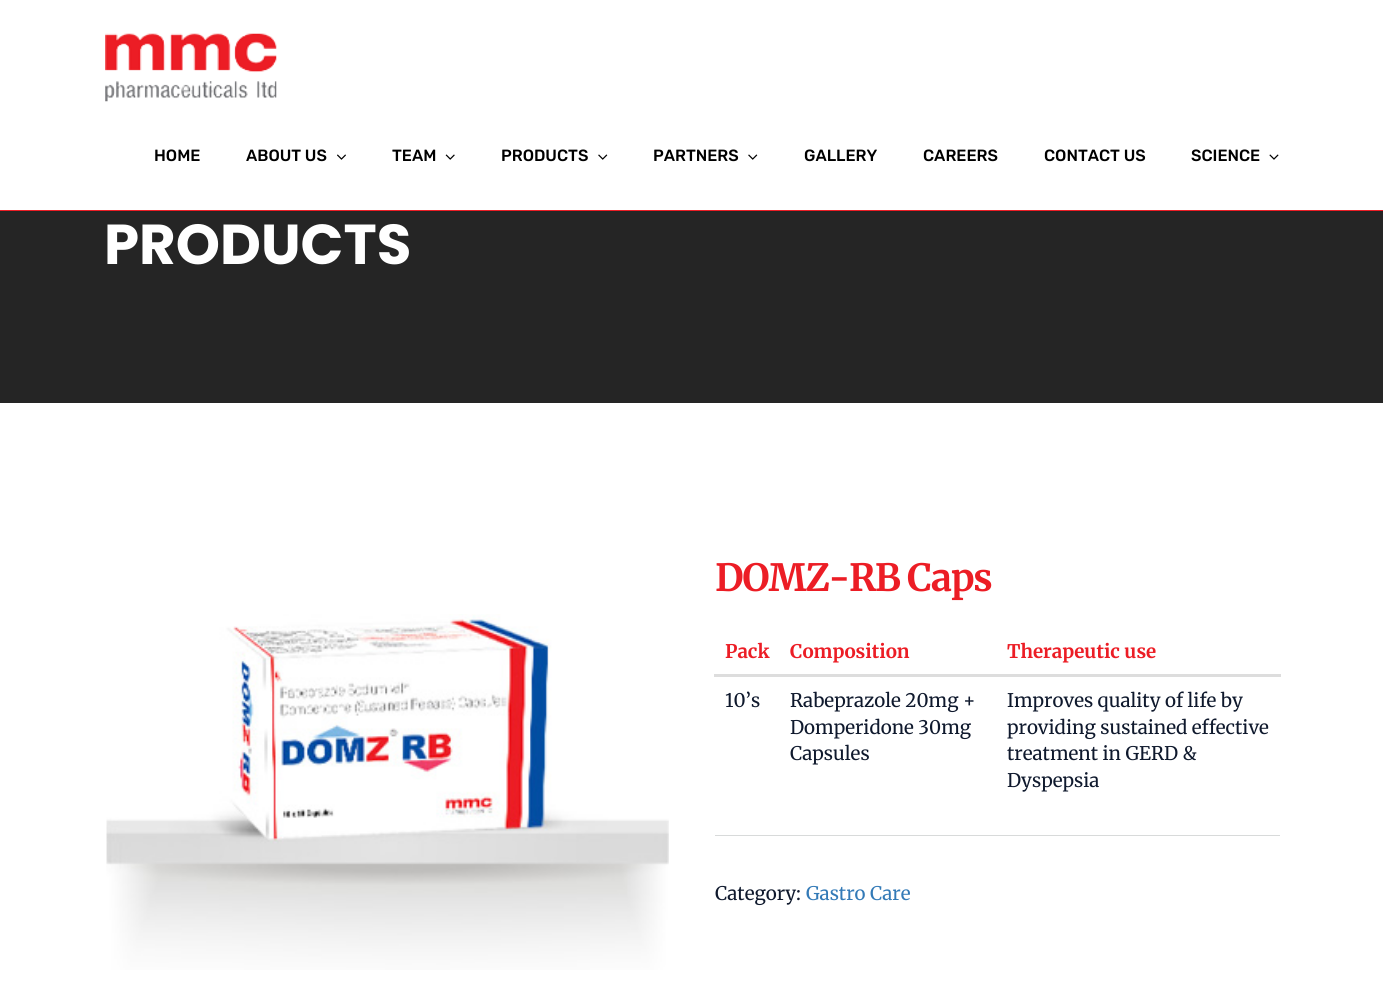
#include <cairo/cairo.h>
#include <math.h>
#include <stddef.h>

static cairo_t *cr;

static void use_color(int r, int g, int b) {
  cairo_set_source_rgb(cr, r / 255.0, g / 255.0, b / 255.0);
}

static void text(double x, double y, const char *s, const char *family, double size, int italic, int bold, int r, int g, int b) {
  cairo_select_font_face(cr, family, italic ? CAIRO_FONT_SLANT_ITALIC : CAIRO_FONT_SLANT_NORMAL,
    bold ? CAIRO_FONT_WEIGHT_BOLD : CAIRO_FONT_WEIGHT_NORMAL);
  cairo_set_font_size(cr, size);
  use_color(r, g, b);
  cairo_move_to(cr, x, y);
  cairo_show_text(cr, s);
}

static void spaced_text(double x, double y, const char *s, double letter, double word) {
  cairo_move_to(cr, x, y);
  while (*s) {
    char ch[5] = {0};
    int n = 0;
    do ch[n++] = *s++; while ((*s & 0xC0) == 0x80);
    cairo_show_text(cr, ch);
    cairo_rel_move_to(cr, letter + word * (*ch == ' '), 0);
  }
}

static void box(double x, double y, double w, double h, int r, int g, int b) {
  use_color(r, g, b);
  cairo_rectangle(cr, x, y, w, h);
  cairo_fill(cr);
}

static void picture(const char *path, double x, double y, double w, double h) {
  cairo_surface_t *image = cairo_image_surface_create_from_png(path);
  cairo_save(cr);
  cairo_set_source_surface(cr, image, x, y);
  cairo_rectangle(cr, x, y, w, h);
  cairo_fill(cr);
  cairo_restore(cr);
  cairo_surface_destroy(image);
}

static void draw(void) {
  use_color(255, 255, 255);
  cairo_paint(cr);
  box(0, 210, 1383, 1, 236, 29, 37);
  picture("img_01.png", 105, 33, 172, 69);
  picture("img_02.png", 337, 154, 9, 6);
  picture("img_03.png", 445, 154, 10, 6);
  picture("img_04.png", 598, 154, 10, 6);
  picture("img_04.png", 748, 154, 10, 6);
  picture("img_05.png", 1269, 154, 10, 6);
  box(0, 211, 1383, 192, 37, 37, 37);
  picture("img_06.png", 106, 614, 563, 356);
  box(715, 835, 565, 1, 216, 218, 218);
  box(714, 674, 567, 3, 221, 221, 221);
  text(154, 161, "HOME", "Rubik Medium", 16.25, 0, 0, 0, 0, 0);
  text(246, 161, "ABOUT US", "Rubik Medium", 16.25, 0, 0, 0, 0, 0);
  text(392, 161, "TEAM", "Rubik Medium", 16.25, 0, 0, 0, 0, 0);
  text(501, 161, "PRODUCTS", "Rubik Medium", 16.25, 0, 0, 0, 0, 0);
  text(653, 161, "PARTNERS", "Rubik Medium", 16.25, 0, 0, 0, 0, 0);
  text(804, 161, "GALLERY", "Rubik Medium", 16.25, 0, 0, 0, 0, 0);
  text(923, 161, "CAREERS", "Rubik Medium", 16.25, 0, 0, 0, 0, 0);
  text(1044, 161, "CONTACT US", "Rubik Medium", 16.25, 0, 0, 0, 0, 0);
  text(1191, 161, "SCIENCE", "Rubik Medium", 16.25, 0, 0, 0, 0, 0);
  text(104, 264, "PRODUCTS", "Poppins", 56.25, 0, 1, 255, 255, 255);
  cairo_select_font_face(cr, "Merriweather", CAIRO_FONT_SLANT_NORMAL, CAIRO_FONT_WEIGHT_BOLD);
  cairo_set_font_size(cr, 37.5);
  use_color(236, 29, 37);
  spaced_text(715, 591, "DOMZ-RB Caps", -1.25, 0);
  text(725, 658, "Pack", "Merriweather", 18.75, 0, 1, 236, 29, 37);
  text(790, 658, "Composition", "Merriweather", 18.75, 0, 1, 236, 29, 37);
  text(1007, 658, "Therapeutic use", "Merriweather", 18.75, 0, 1, 236, 29, 37);
  text(725, 707, "10’s", "Merriweather", 18.75, 0, 0, 15, 25, 45);
  text(790, 707, "Rabeprazole 20mg +", "Merriweather", 18.75, 0, 0, 15, 25, 45);
  text(790, 734, "Domperidone 30mg", "Merriweather", 18.75, 0, 0, 15, 25, 45);
  text(790, 760, "Capsules", "Merriweather", 18.75, 0, 0, 15, 25, 45);
  text(1007, 707, "Improves quality of life by", "Merriweather", 18.75, 0, 0, 15, 25, 45);
  text(1007, 734, "providing sustained effective", "Merriweather", 18.75, 0, 0, 15, 25, 45);
  text(1007, 760, "treatment in GERD &", "Merriweather", 18.75, 0, 0, 15, 25, 45);
  text(1007, 787, "Dyspepsia", "Merriweather", 18.75, 0, 0, 15, 25, 45);
  text(715, 900, "Category:", "Merriweather", 18.75, 0, 0, 15, 25, 45);
  text(806, 900, "Gastro Care", "Merriweather", 18.75, 0, 0, 51, 122, 183);
}

int main(void) {
  cairo_surface_t *surface = cairo_image_surface_create(CAIRO_FORMAT_RGB24, 1383, 991);
  cr = cairo_create(surface);
  cairo_font_options_t *options = cairo_font_options_create();
  cairo_font_options_set_hint_metrics(options, CAIRO_HINT_METRICS_OFF);
  cairo_font_options_set_hint_style(options, CAIRO_HINT_STYLE_NONE);
  cairo_set_font_options(cr, options);
  cairo_set_miter_limit(cr, 4);
  draw();
  cairo_surface_write_to_png(surface, "out.png");
  cairo_font_options_destroy(options);
  cairo_destroy(cr);
  cairo_surface_destroy(surface);
  return 0;
}
